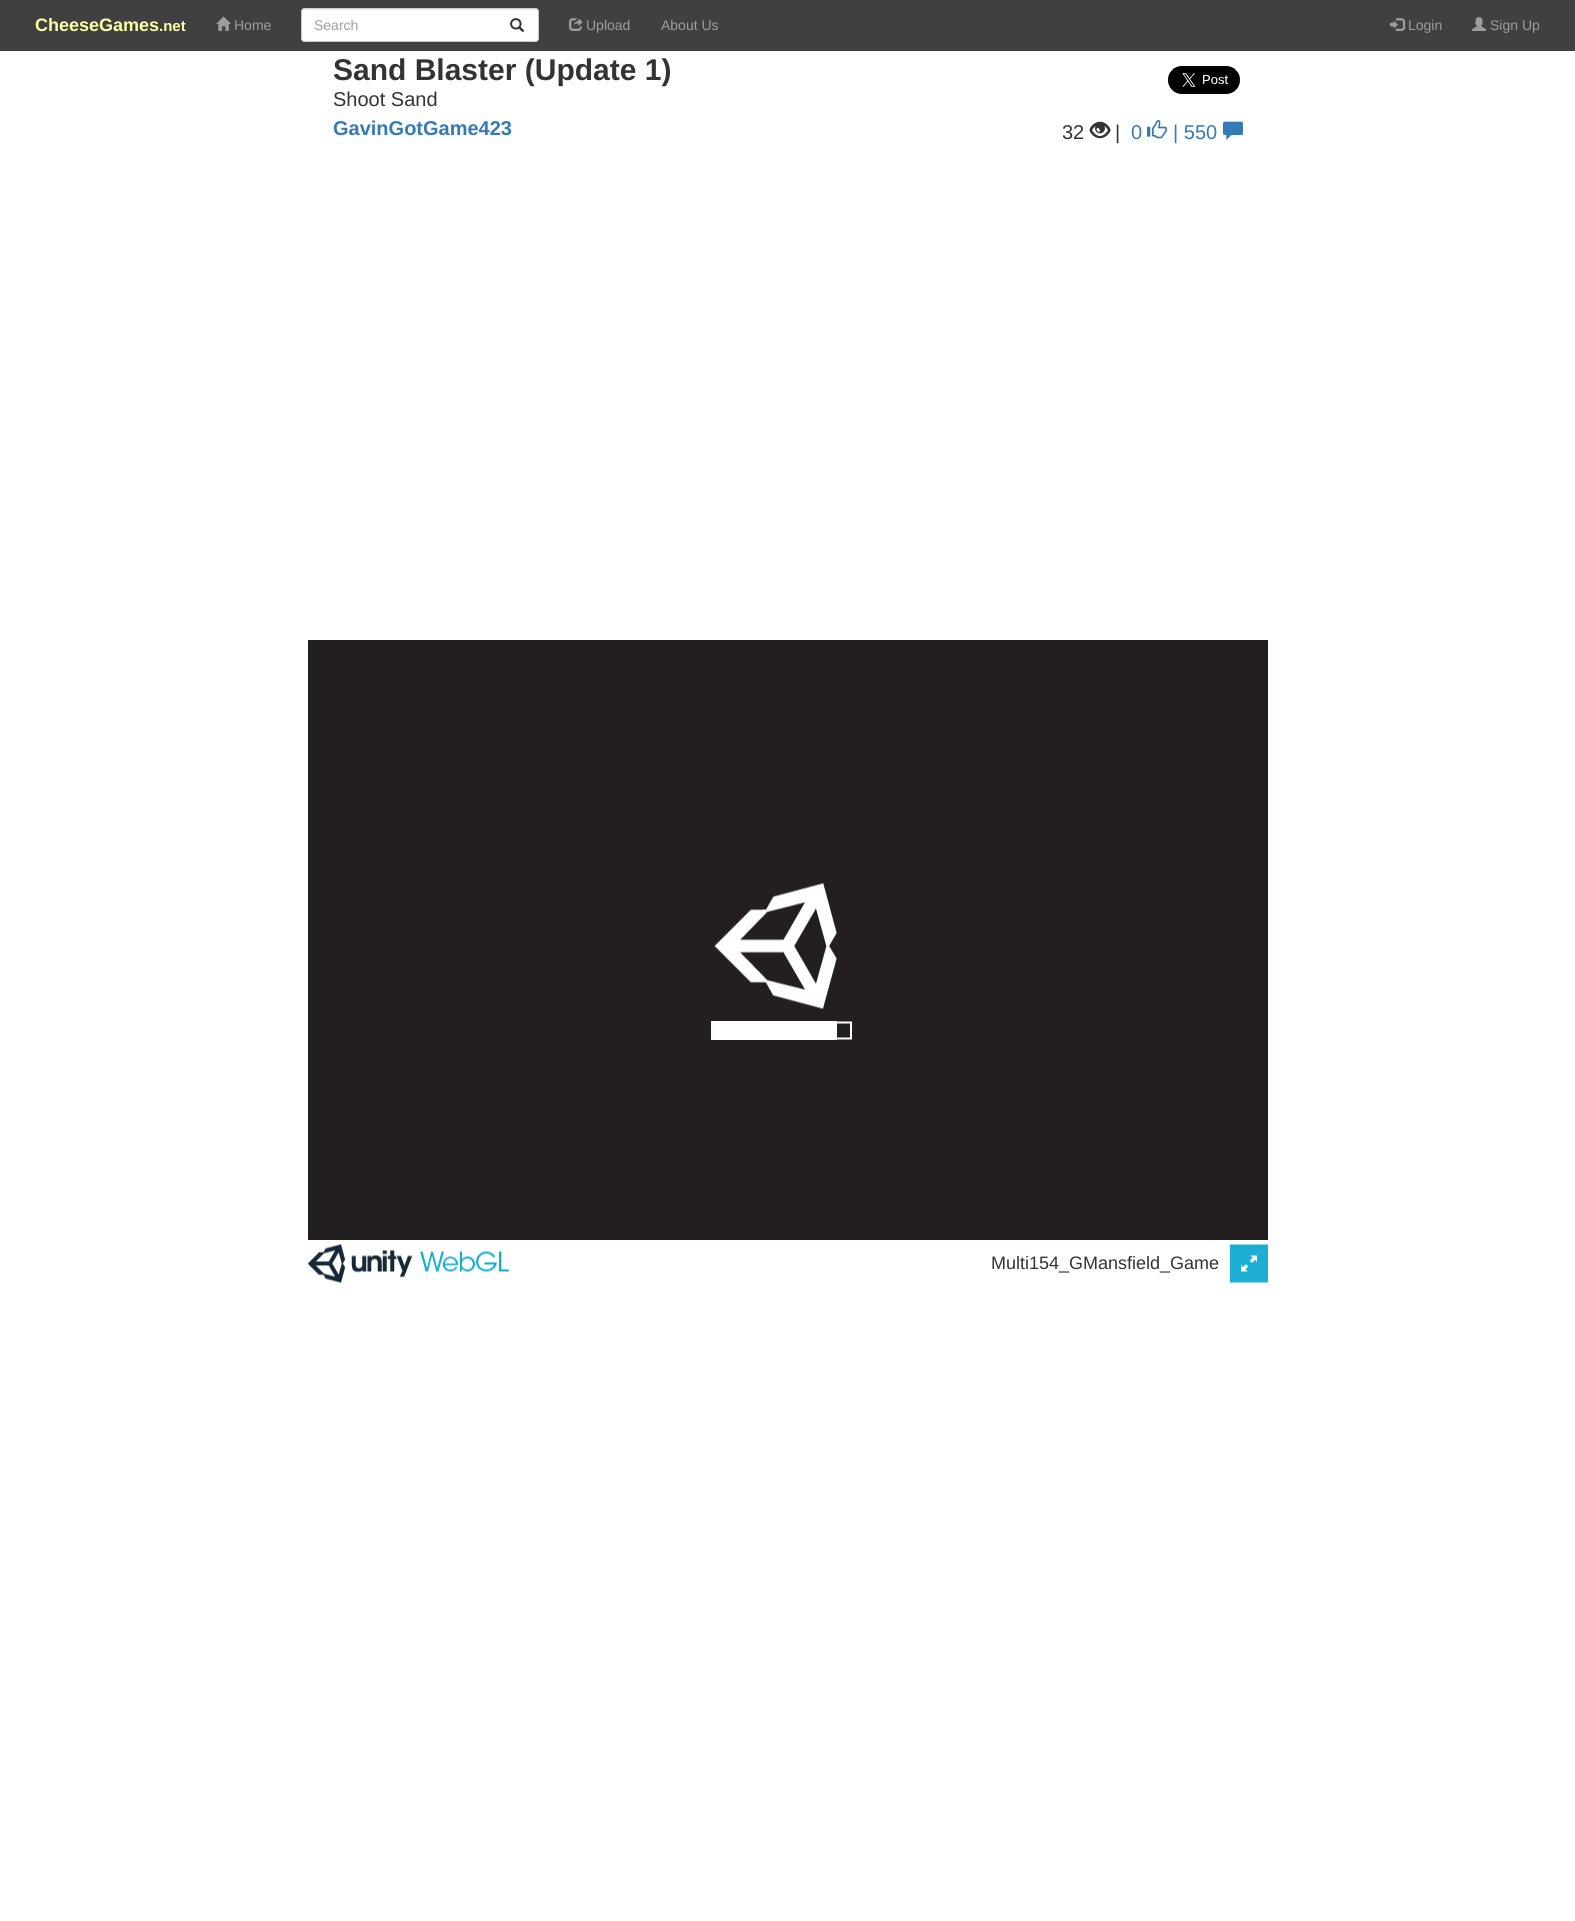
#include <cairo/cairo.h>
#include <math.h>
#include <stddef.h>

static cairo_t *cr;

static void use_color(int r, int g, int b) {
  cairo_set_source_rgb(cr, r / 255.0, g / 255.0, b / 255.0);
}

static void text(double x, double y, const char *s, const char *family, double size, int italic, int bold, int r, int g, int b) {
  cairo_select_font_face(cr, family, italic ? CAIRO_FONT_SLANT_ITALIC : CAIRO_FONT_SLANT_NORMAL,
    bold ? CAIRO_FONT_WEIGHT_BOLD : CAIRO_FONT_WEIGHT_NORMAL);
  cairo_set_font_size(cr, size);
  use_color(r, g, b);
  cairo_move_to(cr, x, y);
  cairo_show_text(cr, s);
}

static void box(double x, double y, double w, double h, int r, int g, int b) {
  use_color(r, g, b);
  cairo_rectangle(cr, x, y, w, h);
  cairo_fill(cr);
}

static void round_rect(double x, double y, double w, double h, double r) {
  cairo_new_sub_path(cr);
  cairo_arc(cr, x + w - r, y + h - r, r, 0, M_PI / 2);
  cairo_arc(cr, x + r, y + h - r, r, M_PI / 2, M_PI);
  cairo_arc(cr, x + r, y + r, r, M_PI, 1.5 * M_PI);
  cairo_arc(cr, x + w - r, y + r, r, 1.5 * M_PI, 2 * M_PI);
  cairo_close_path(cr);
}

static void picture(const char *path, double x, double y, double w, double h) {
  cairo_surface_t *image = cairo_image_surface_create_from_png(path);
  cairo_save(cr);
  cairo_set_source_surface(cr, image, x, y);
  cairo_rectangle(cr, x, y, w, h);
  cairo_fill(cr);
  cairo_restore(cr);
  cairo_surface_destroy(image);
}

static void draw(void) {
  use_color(255, 255, 255);
  cairo_paint(cr);
  box(0, 0, 1575, 51, 64, 64, 64);
  picture("img_01.png", 216, 16, 15, 15);
  use_color(255, 255, 255);
  round_rect(301, 8, 238, 34, 4);
  cairo_fill(cr);
  use_color(236, 236, 236);
  cairo_new_path(cr);
  cairo_move_to(cr, 305, 10);
  cairo_line_to(cr, 536, 10);
  cairo_line_to(cr, 538, 11);
  cairo_line_to(cr, 538, 13);
  cairo_curve_to(cr, 538, 11, 537, 9, 535, 9);
  cairo_line_to(cr, 305, 9);
  cairo_curve_to(cr, 303, 9, 302, 11, 302, 13);
  cairo_curve_to(cr, 302, 11, 303, 10, 305, 10);
  cairo_close_path(cr);
  cairo_fill(cr);
  round_rect(301.5, 8.5, 237, 33, 3.5);
  use_color(204, 204, 204);
  cairo_set_line_width(cr, 1);
  cairo_stroke(cr);
  picture("img_02.png", 510, 18, 15, 14);
  picture("img_03.png", 569, 18, 14, 13);
  picture("img_04.png", 1390, 18, 16, 13);
  picture("img_05.png", 1472, 17, 14, 14);
  picture("img_06.png", 1168, 66, 72, 28);
  picture("img_07.png", 1089, 121, 22, 18);
  picture("img_08.png", 1147, 120, 20, 19);
  picture("img_09.png", 1223, 121, 20, 19);
  box(308, 640, 960, 600, 35, 31, 32);
  picture("img_10.png", 714, 883, 123, 126);
  picture("img_11.png", 837, 1021, 15, 19);
  box(711, 1021, 126, 19, 255, 255, 255);
  picture("img_12.png", 308, 1244, 201, 39);
  picture("img_13.png", 1230, 1244, 38, 39);
  text(35, 31, "CheeseGames", "Liberation Sans", 18, 0, 1, 255, 255, 170);
  text(159, 31, ".net", "Liberation Sans", 15, 0, 1, 255, 255, 170);
  text(234, 30, "Home", "Liberation Sans", 14, 0, 0, 157, 157, 157);
  text(314, 30, "Search", "Liberation Sans", 14, 0, 0, 157, 157, 157);
  text(586, 30, "Upload", "Liberation Sans", 14, 0, 0, 157, 157, 157);
  text(661, 30, "About Us", "Liberation Sans", 14, 0, 0, 157, 157, 157);
  text(1408, 30, "Login", "Liberation Sans", 14, 0, 0, 157, 157, 157);
  text(1490, 30, "Sign Up", "Liberation Sans", 14, 0, 0, 157, 157, 157);
  text(333, 80, "Sand Blaster (Update 1)", "Liberation Sans", 30, 0, 1, 51, 51, 51);
  text(333, 106, "Shoot Sand", "Liberation Sans", 20, 0, 0, 51, 51, 51);
  text(333, 135, "GavinGotGame423", "Liberation Sans", 20, 0, 1, 51, 122, 183);
  text(1062, 139, "32", "Liberation Sans", 20, 0, 0, 51, 51, 51);
  text(1115, 139, "|", "Liberation Sans", 20, 0, 0, 51, 51, 51);
  text(1131, 139, "0", "Liberation Sans", 20, 0, 0, 51, 122, 183);
  text(1173, 139, "| 550", "Liberation Sans", 20, 0, 0, 51, 122, 183);
  text(991, 1269, "Multi154_GMansfield_Game", "Liberation Sans", 18, 0, 0, 51, 51, 51);
}

int main(void) {
  cairo_surface_t *surface = cairo_image_surface_create(CAIRO_FORMAT_RGB24, 1575, 1921);
  cr = cairo_create(surface);
  cairo_font_options_t *options = cairo_font_options_create();
  cairo_font_options_set_hint_metrics(options, CAIRO_HINT_METRICS_OFF);
  cairo_font_options_set_hint_style(options, CAIRO_HINT_STYLE_NONE);
  cairo_set_font_options(cr, options);
  cairo_set_miter_limit(cr, 4);
  draw();
  cairo_surface_write_to_png(surface, "out.png");
  cairo_font_options_destroy(options);
  cairo_destroy(cr);
  cairo_surface_destroy(surface);
  return 0;
}
